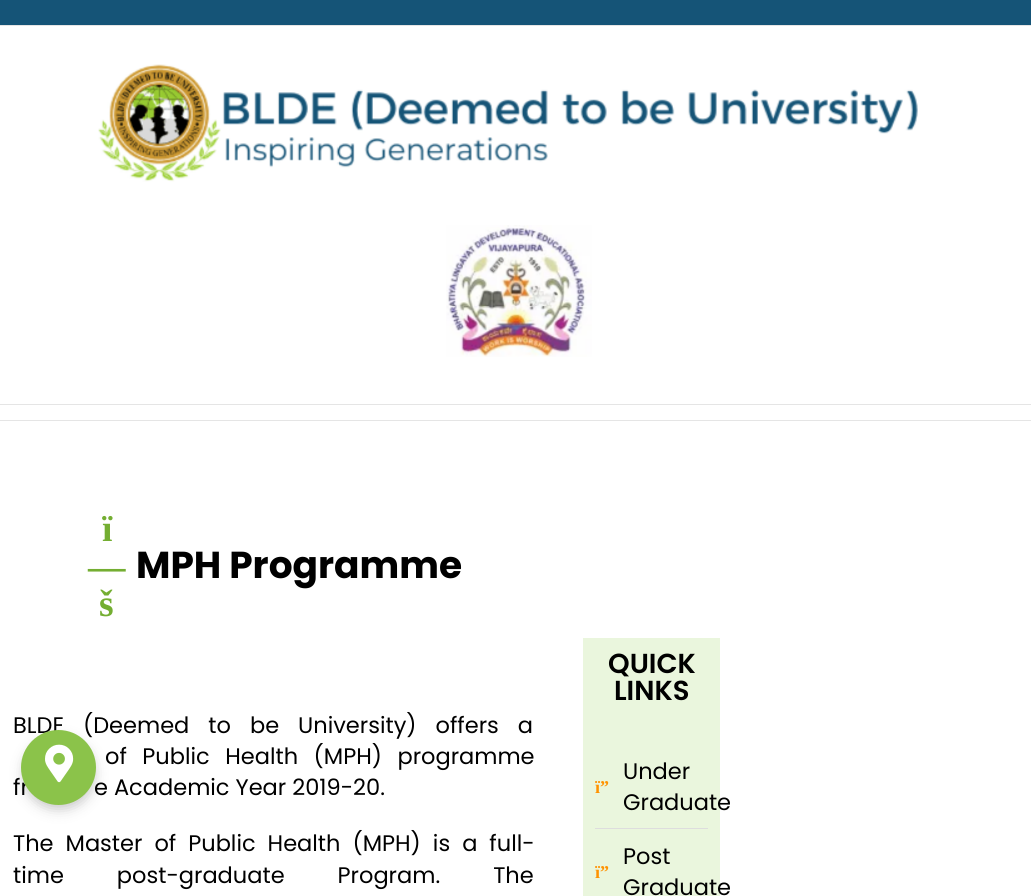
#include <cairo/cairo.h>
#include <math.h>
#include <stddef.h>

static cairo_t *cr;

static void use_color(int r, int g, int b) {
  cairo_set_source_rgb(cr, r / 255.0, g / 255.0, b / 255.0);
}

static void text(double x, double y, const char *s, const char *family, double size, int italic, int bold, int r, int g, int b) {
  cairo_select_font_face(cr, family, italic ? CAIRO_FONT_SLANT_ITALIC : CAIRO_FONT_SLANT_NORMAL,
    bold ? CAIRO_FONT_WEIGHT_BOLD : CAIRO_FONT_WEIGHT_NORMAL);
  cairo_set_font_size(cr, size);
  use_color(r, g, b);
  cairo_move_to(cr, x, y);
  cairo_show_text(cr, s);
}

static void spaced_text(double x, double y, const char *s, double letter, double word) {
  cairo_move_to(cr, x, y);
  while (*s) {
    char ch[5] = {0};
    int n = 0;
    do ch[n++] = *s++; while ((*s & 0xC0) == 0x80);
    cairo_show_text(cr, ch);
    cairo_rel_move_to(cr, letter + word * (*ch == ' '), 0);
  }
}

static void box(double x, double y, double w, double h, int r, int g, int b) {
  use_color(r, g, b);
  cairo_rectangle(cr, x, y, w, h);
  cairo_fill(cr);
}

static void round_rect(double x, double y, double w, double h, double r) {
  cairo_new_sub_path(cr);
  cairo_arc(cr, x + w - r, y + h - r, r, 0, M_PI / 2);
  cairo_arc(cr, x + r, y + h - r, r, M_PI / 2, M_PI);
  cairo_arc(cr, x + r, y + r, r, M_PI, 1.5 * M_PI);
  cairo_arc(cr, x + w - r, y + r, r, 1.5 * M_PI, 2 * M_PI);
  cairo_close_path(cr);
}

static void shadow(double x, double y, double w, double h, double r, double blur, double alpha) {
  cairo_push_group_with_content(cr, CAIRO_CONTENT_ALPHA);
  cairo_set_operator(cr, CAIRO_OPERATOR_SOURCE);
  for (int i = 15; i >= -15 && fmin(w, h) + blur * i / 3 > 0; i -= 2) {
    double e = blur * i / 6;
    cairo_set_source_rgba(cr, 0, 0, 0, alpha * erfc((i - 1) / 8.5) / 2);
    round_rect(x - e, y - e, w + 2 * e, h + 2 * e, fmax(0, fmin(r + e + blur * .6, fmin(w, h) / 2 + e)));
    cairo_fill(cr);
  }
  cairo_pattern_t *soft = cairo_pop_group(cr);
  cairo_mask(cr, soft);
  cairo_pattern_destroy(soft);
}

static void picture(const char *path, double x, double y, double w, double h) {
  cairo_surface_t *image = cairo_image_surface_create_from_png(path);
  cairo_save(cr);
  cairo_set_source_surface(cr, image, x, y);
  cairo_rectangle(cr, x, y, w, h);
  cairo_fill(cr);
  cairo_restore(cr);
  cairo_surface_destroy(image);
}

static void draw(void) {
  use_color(255, 255, 255);
  cairo_paint(cr);
  box(0, 0, 1031, 25, 21, 84, 119);
  box(0, 25, 1031, 1, 229, 229, 229);
  box(0, 404, 1031, 1, 229, 229, 229);
  picture("img_01.png", 98, 64, 820, 118);
  picture("img_02.png", 446, 225, 146, 132);
  box(0, 420, 1031, 1, 229, 229, 229);
  box(583, 638, 137, 258, 234, 246, 221);
  box(595, 828, 113, 1, 221, 221, 221);
  use_color(0, 0, 0);
  shadow(30, 744, 58, 57, 28.5, 7.5, 0.15);
  shadow(24, 739, 70, 70, 35, 7, 0.18);
  text(102, 541, "ï", "Liberation Serif", 37.5, 0, 1, 116, 174, 50);
  text(88, 579, "—", "Liberation Serif", 37.5, 0, 1, 116, 174, 50);
  text(99, 616, "š", "Liberation Serif", 37.5, 0, 1, 116, 174, 50);
  text(136, 578, "MPH Programme", "Poppins", 37.5, 0, 1, 0, 0, 0);
  cairo_select_font_face(cr, "Poppins", CAIRO_FONT_SLANT_NORMAL, CAIRO_FONT_WEIGHT_NORMAL);
  cairo_set_font_size(cr, 22.5);
  spaced_text(13, 733, "BLDE (Deemed to be University) offers a", 0, 13);
  spaced_text(105, 764, "of Public Health (MPH) programme", 0, 9.5);
  text(13, 795, "fr", "Poppins", 22.5, 0, 0, 0, 0, 0);
  text(94, 795, "e Academic Year 2019-20.", "Poppins", 22.5, 0, 0, 0, 0, 0);
  spaced_text(13, 851, "The Master of Public Health (MPH) is a full-", 0, 6);
  spaced_text(13, 883, "time post-graduate Program. The", 0, 47);
  text(608, 673, "QUICK", "Poppins SemiBold", 27.5, 0, 0, 0, 0, 0);
  text(614, 700, "LINKS", "Poppins SemiBold", 27.5, 0, 0, 0, 0, 0);
  text(595, 793, "ï”", "Liberation Serif", 18, 0, 1, 255, 146, 0);
  text(623, 779, "Under", "Poppins", 22.5, 0, 0, 0, 0, 0);
  text(623, 810, "Graduate", "Poppins", 22.5, 0, 0, 0, 0, 0);
  text(595, 878, "ï”", "Liberation Serif", 18, 0, 1, 255, 146, 0);
  text(623, 864, "Post", "Poppins", 22.5, 0, 0, 0, 0, 0);
  text(623, 895, "Graduate", "Poppins", 22.5, 0, 0, 0, 0, 0);
  use_color(139, 195, 74);
  cairo_new_path(cr);
  cairo_arc(cr, 58.5, 767.5, 37.5, 0, 2 * M_PI);
  cairo_fill(cr);
  picture("img_03.png", 45, 744, 29, 39);
}

int main(void) {
  cairo_surface_t *surface = cairo_image_surface_create(CAIRO_FORMAT_RGB24, 1031, 896);
  cr = cairo_create(surface);
  cairo_font_options_t *options = cairo_font_options_create();
  cairo_font_options_set_hint_metrics(options, CAIRO_HINT_METRICS_OFF);
  cairo_font_options_set_hint_style(options, CAIRO_HINT_STYLE_NONE);
  cairo_set_font_options(cr, options);
  cairo_set_miter_limit(cr, 4);
  draw();
  cairo_surface_write_to_png(surface, "out.png");
  cairo_font_options_destroy(options);
  cairo_destroy(cr);
  cairo_surface_destroy(surface);
  return 0;
}
